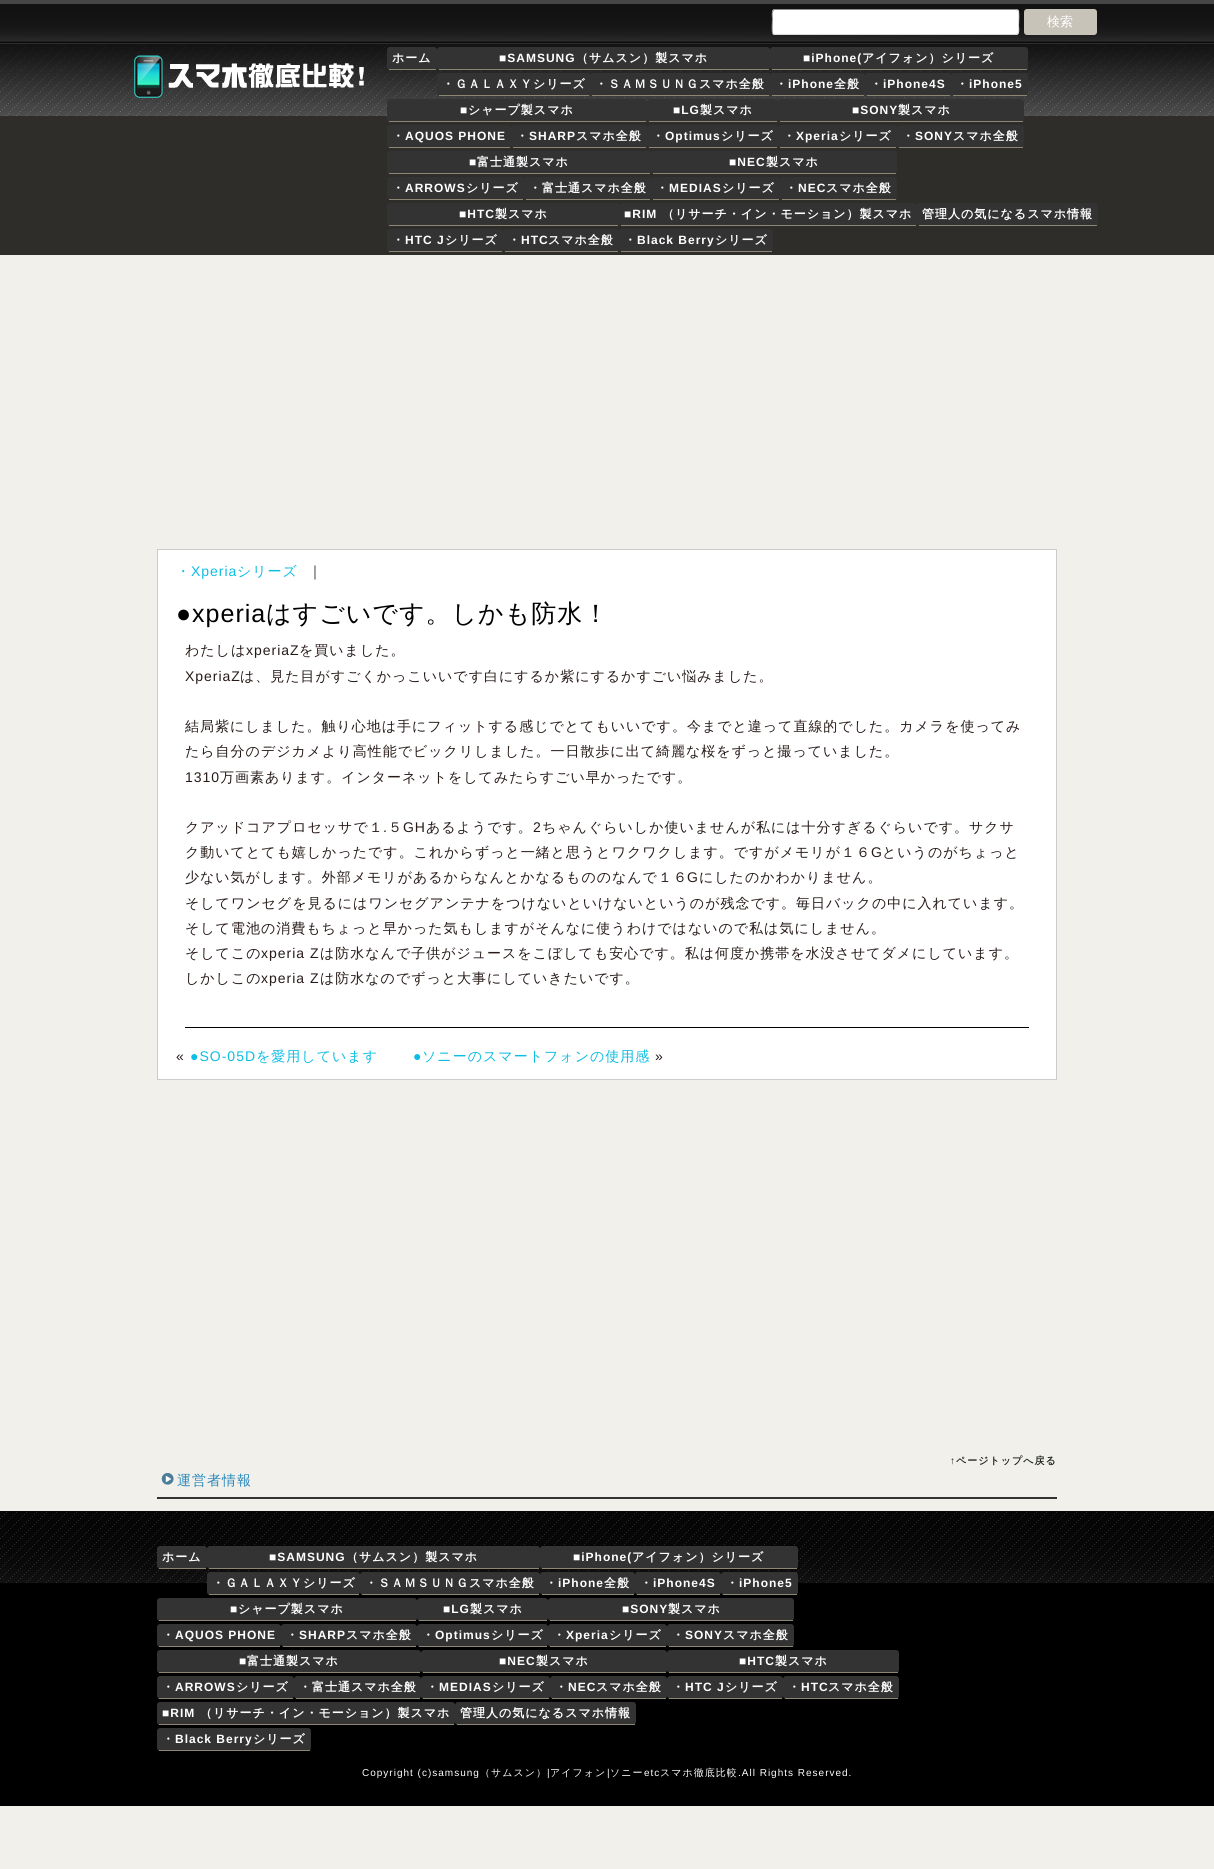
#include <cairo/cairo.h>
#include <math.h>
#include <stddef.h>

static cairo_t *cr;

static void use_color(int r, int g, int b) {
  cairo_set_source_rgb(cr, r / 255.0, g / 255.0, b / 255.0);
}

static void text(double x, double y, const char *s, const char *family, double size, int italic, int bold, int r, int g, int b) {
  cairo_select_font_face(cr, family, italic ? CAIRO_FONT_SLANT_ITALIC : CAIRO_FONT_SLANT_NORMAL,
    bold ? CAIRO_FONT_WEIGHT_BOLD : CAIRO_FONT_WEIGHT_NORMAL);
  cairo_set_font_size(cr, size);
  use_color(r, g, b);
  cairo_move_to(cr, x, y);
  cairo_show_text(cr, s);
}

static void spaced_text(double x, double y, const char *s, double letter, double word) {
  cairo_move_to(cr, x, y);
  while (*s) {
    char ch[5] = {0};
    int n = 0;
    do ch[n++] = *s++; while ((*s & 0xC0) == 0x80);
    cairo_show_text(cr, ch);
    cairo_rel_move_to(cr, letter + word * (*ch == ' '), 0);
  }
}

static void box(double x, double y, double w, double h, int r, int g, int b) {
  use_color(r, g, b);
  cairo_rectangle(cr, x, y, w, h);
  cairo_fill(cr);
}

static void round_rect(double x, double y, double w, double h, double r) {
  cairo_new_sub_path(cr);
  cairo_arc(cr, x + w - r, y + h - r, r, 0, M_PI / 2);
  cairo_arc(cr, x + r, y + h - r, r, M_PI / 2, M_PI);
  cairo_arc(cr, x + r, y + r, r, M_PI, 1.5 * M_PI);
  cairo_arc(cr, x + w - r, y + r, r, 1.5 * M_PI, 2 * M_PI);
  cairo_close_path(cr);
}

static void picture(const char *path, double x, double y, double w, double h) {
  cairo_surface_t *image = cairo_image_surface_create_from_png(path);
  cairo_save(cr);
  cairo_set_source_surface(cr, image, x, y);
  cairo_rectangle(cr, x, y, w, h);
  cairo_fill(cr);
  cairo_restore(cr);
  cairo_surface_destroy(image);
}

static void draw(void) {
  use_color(241, 240, 235);
  cairo_paint(cr);
  box(0, 0, 1214, 4, 70, 70, 70);
  box(0, 116, 1214, 139, 46, 45, 42);
  picture("img_01.png", 0, 4, 1214, 112);
  use_color(255, 255, 255);
  round_rect(772, 9, 247, 26, 3);
  cairo_fill(cr);
  cairo_new_path(cr);
  cairo_move_to(cr, 1018, 10);
  cairo_curve_to(cr, 1019.5, 12, 1018.5, 22.5, 1018.5, 25.5);
  cairo_curve_to(cr, 1018.5, 27, 1020, 34.5, 1016, 34.5);
  cairo_line_to(cr, 775, 34.5);
  cairo_line_to(cr, 773, 34);
  use_color(216, 216, 216);
  cairo_set_line_width(cr, 1);
  cairo_stroke(cr);
  cairo_new_path(cr);
  cairo_move_to(cr, 773, 34);
  cairo_curve_to(cr, 771.5, 32, 772.5, 21.5, 772.5, 18.5);
  cairo_curve_to(cr, 772.5, 17, 771, 9.5, 775, 9.5);
  cairo_line_to(cr, 1016, 9.5);
  cairo_line_to(cr, 1018, 10);
  use_color(144, 144, 144);
  cairo_stroke(cr);
  use_color(200, 195, 184);
  round_rect(1024, 9, 73, 26, 3);
  cairo_fill(cr);
  picture("img_02.png", 134, 55, 230, 43);
  use_color(51, 51, 51);
  round_rect(387, 47, 50, 23, 3);
  cairo_fill(cr);
  box(389, 69, 47, 1, 140, 135, 115);
  use_color(51, 51, 51);
  round_rect(437, 47, 333, 23, 3);
  cairo_fill(cr);
  box(439, 69, 330, 1, 140, 135, 115);
  use_color(51, 51, 51);
  round_rect(437, 73, 153, 23, 3);
  cairo_fill(cr);
  box(439, 95, 150, 1, 140, 135, 115);
  use_color(51, 51, 51);
  round_rect(590, 73, 180, 23, 3);
  cairo_fill(cr);
  box(592, 95, 177, 1, 140, 135, 115);
  use_color(51, 51, 51);
  round_rect(770, 47, 258, 23, 3);
  cairo_fill(cr);
  box(772, 69, 255, 1, 140, 135, 115);
  use_color(51, 51, 51);
  round_rect(770, 73, 95, 23, 3);
  cairo_fill(cr);
  box(772, 95, 92, 1, 140, 135, 115);
  use_color(51, 51, 51);
  round_rect(865, 73, 86, 23, 3);
  cairo_fill(cr);
  box(867, 95, 83, 1, 140, 135, 115);
  use_color(51, 51, 51);
  round_rect(951, 73, 77, 23, 3);
  cairo_fill(cr);
  box(953, 95, 74, 1, 140, 135, 115);
  use_color(51, 51, 51);
  round_rect(387, 99, 260, 23, 3);
  cairo_fill(cr);
  box(389, 121, 257, 1, 140, 135, 115);
  use_color(51, 51, 51);
  round_rect(387, 125, 124, 23, 3);
  cairo_fill(cr);
  box(389, 147, 121, 1, 140, 135, 115);
  use_color(51, 51, 51);
  round_rect(511, 125, 136, 23, 3);
  cairo_fill(cr);
  box(513, 147, 133, 1, 140, 135, 115);
  use_color(51, 51, 51);
  round_rect(647, 99, 131, 23, 3);
  cairo_fill(cr);
  box(649, 121, 128, 1, 140, 135, 115);
  use_color(51, 51, 51);
  round_rect(647, 125, 131, 23, 3);
  cairo_fill(cr);
  box(649, 147, 128, 1, 140, 135, 115);
  use_color(51, 51, 51);
  round_rect(778, 99, 246, 23, 3);
  cairo_fill(cr);
  box(780, 121, 243, 1, 140, 135, 115);
  use_color(51, 51, 51);
  round_rect(778, 125, 119, 23, 3);
  cairo_fill(cr);
  box(780, 147, 116, 1, 140, 135, 115);
  use_color(51, 51, 51);
  round_rect(897, 125, 127, 23, 3);
  cairo_fill(cr);
  box(899, 147, 124, 1, 140, 135, 115);
  use_color(51, 51, 51);
  round_rect(387, 151, 264, 23, 3);
  cairo_fill(cr);
  box(389, 173, 261, 1, 140, 135, 115);
  use_color(51, 51, 51);
  round_rect(387, 177, 137, 23, 3);
  cairo_fill(cr);
  box(389, 199, 134, 1, 140, 135, 115);
  use_color(51, 51, 51);
  round_rect(524, 177, 127, 23, 3);
  cairo_fill(cr);
  box(526, 199, 124, 1, 140, 135, 115);
  use_color(51, 51, 51);
  round_rect(651, 151, 246, 23, 3);
  cairo_fill(cr);
  box(653, 173, 243, 1, 140, 135, 115);
  use_color(51, 51, 51);
  round_rect(651, 177, 129, 23, 3);
  cairo_fill(cr);
  box(653, 199, 126, 1, 140, 135, 115);
  use_color(51, 51, 51);
  round_rect(780, 177, 117, 23, 3);
  cairo_fill(cr);
  box(782, 199, 114, 1, 140, 135, 115);
  use_color(51, 51, 51);
  round_rect(387, 203, 232, 23, 3);
  cairo_fill(cr);
  box(389, 225, 229, 1, 140, 135, 115);
  use_color(51, 51, 51);
  round_rect(387, 229, 116, 23, 3);
  cairo_fill(cr);
  box(389, 251, 113, 1, 140, 135, 115);
  use_color(51, 51, 51);
  round_rect(503, 229, 116, 23, 3);
  cairo_fill(cr);
  box(505, 251, 113, 1, 140, 135, 115);
  use_color(51, 51, 51);
  round_rect(619, 203, 298, 23, 3);
  cairo_fill(cr);
  box(621, 225, 295, 1, 140, 135, 115);
  use_color(51, 51, 51);
  round_rect(619, 229, 154, 23, 3);
  cairo_fill(cr);
  box(621, 251, 151, 1, 140, 135, 115);
  use_color(51, 51, 51);
  round_rect(917, 203, 181, 23, 3);
  cairo_fill(cr);
  box(919, 225, 178, 1, 140, 135, 115);
  box(157, 1497, 900, 2, 51, 51, 51);
  use_color(255, 255, 255);
  cairo_rectangle(cr, 157.5, 549.5, 899, 530);
  cairo_fill_preserve(cr);
  use_color(204, 204, 204);
  cairo_stroke(cr);
  box(185, 1027, 844, 1, 0, 0, 0);
  picture("img_03.png", 161, 1473, 13, 12);
  box(0, 1583, 1214, 223, 0, 0, 0);
  picture("img_04.png", 0, 1511, 1214, 72);
  use_color(51, 51, 51);
  round_rect(157, 1546, 50, 23, 3);
  cairo_fill(cr);
  box(159, 1568, 47, 1, 140, 135, 115);
  use_color(51, 51, 51);
  round_rect(207, 1546, 333, 23, 3);
  cairo_fill(cr);
  box(209, 1568, 330, 1, 140, 135, 115);
  use_color(51, 51, 51);
  round_rect(207, 1572, 153, 23, 3);
  cairo_fill(cr);
  box(209, 1594, 150, 1, 140, 135, 115);
  use_color(51, 51, 51);
  round_rect(360, 1572, 180, 23, 3);
  cairo_fill(cr);
  box(362, 1594, 177, 1, 140, 135, 115);
  use_color(51, 51, 51);
  round_rect(540, 1546, 258, 23, 3);
  cairo_fill(cr);
  box(542, 1568, 255, 1, 140, 135, 115);
  use_color(51, 51, 51);
  round_rect(540, 1572, 95, 23, 3);
  cairo_fill(cr);
  box(542, 1594, 92, 1, 140, 135, 115);
  use_color(51, 51, 51);
  round_rect(635, 1572, 86, 23, 3);
  cairo_fill(cr);
  box(637, 1594, 83, 1, 140, 135, 115);
  use_color(51, 51, 51);
  round_rect(721, 1572, 77, 23, 3);
  cairo_fill(cr);
  box(723, 1594, 74, 1, 140, 135, 115);
  use_color(51, 51, 51);
  round_rect(157, 1598, 260, 23, 3);
  cairo_fill(cr);
  box(159, 1620, 257, 1, 140, 135, 115);
  use_color(51, 51, 51);
  round_rect(157, 1624, 124, 23, 3);
  cairo_fill(cr);
  box(159, 1646, 121, 1, 140, 135, 115);
  use_color(51, 51, 51);
  round_rect(281, 1624, 136, 23, 3);
  cairo_fill(cr);
  box(283, 1646, 133, 1, 140, 135, 115);
  use_color(51, 51, 51);
  round_rect(417, 1598, 131, 23, 3);
  cairo_fill(cr);
  box(419, 1620, 128, 1, 140, 135, 115);
  use_color(51, 51, 51);
  round_rect(417, 1624, 131, 23, 3);
  cairo_fill(cr);
  box(419, 1646, 128, 1, 140, 135, 115);
  use_color(51, 51, 51);
  round_rect(548, 1598, 246, 23, 3);
  cairo_fill(cr);
  box(550, 1620, 243, 1, 140, 135, 115);
  use_color(51, 51, 51);
  round_rect(548, 1624, 119, 23, 3);
  cairo_fill(cr);
  box(550, 1646, 116, 1, 140, 135, 115);
  use_color(51, 51, 51);
  round_rect(667, 1624, 127, 23, 3);
  cairo_fill(cr);
  box(669, 1646, 124, 1, 140, 135, 115);
  use_color(51, 51, 51);
  round_rect(157, 1650, 264, 23, 3);
  cairo_fill(cr);
  box(159, 1672, 261, 1, 140, 135, 115);
  use_color(51, 51, 51);
  round_rect(157, 1676, 137, 23, 3);
  cairo_fill(cr);
  box(159, 1698, 134, 1, 140, 135, 115);
  use_color(51, 51, 51);
  round_rect(294, 1676, 127, 23, 3);
  cairo_fill(cr);
  box(296, 1698, 124, 1, 140, 135, 115);
  use_color(51, 51, 51);
  round_rect(421, 1650, 246, 23, 3);
  cairo_fill(cr);
  box(423, 1672, 243, 1, 140, 135, 115);
  use_color(51, 51, 51);
  round_rect(421, 1676, 129, 23, 3);
  cairo_fill(cr);
  box(423, 1698, 126, 1, 140, 135, 115);
  use_color(51, 51, 51);
  round_rect(550, 1676, 117, 23, 3);
  cairo_fill(cr);
  box(552, 1698, 114, 1, 140, 135, 115);
  use_color(51, 51, 51);
  round_rect(667, 1650, 232, 23, 3);
  cairo_fill(cr);
  box(669, 1672, 229, 1, 140, 135, 115);
  use_color(51, 51, 51);
  round_rect(667, 1676, 116, 23, 3);
  cairo_fill(cr);
  box(669, 1698, 113, 1, 140, 135, 115);
  use_color(51, 51, 51);
  round_rect(783, 1676, 116, 23, 3);
  cairo_fill(cr);
  box(785, 1698, 113, 1, 140, 135, 115);
  use_color(51, 51, 51);
  round_rect(157, 1702, 298, 23, 3);
  cairo_fill(cr);
  box(159, 1724, 295, 1, 140, 135, 115);
  use_color(51, 51, 51);
  round_rect(157, 1728, 154, 23, 3);
  cairo_fill(cr);
  box(159, 1750, 151, 1, 140, 135, 115);
  use_color(51, 51, 51);
  round_rect(455, 1702, 181, 23, 3);
  cairo_fill(cr);
  box(457, 1724, 178, 1, 140, 135, 115);
  text(1047, 26, "検索", "WenQuanYi Zen Hei Medium", 13, 0, 0, 255, 255, 255);
  cairo_select_font_face(cr, "WenQuanYi Zen Hei", CAIRO_FONT_SLANT_NORMAL, CAIRO_FONT_WEIGHT_BOLD);
  cairo_set_font_size(cr, 12);
  spaced_text(392, 62, "ホーム", 1, 0);
  cairo_select_font_face(cr, "Liberation Sans", CAIRO_FONT_SLANT_NORMAL, CAIRO_FONT_WEIGHT_BOLD);
  spaced_text(499, 62, "■SAMSUNG", 1, 0);
  cairo_select_font_face(cr, "WenQuanYi Zen Hei", CAIRO_FONT_SLANT_NORMAL, CAIRO_FONT_WEIGHT_BOLD);
  spaced_text(576, 62, "（サムスン）製スマホ", 1, 0);
  spaced_text(442, 88, "・ＧＡＬＡＸＹシリーズ", 1, 0);
  spaced_text(595, 88, "・ＳＡＭＳＵＮＧスマホ全般", 1, 0);
  cairo_select_font_face(cr, "Liberation Sans", CAIRO_FONT_SLANT_NORMAL, CAIRO_FONT_WEIGHT_BOLD);
  spaced_text(803, 62, "■iPhone(", 1, 0);
  cairo_select_font_face(cr, "WenQuanYi Zen Hei", CAIRO_FONT_SLANT_NORMAL, CAIRO_FONT_WEIGHT_BOLD);
  spaced_text(862, 62, "アイフォン）シリーズ", 1, 0);
  spaced_text(775, 88, "・", 1, 0);
  cairo_select_font_face(cr, "Liberation Sans", CAIRO_FONT_SLANT_NORMAL, CAIRO_FONT_WEIGHT_BOLD);
  spaced_text(788, 88, "iPhone", 1, 0);
  cairo_select_font_face(cr, "WenQuanYi Zen Hei", CAIRO_FONT_SLANT_NORMAL, CAIRO_FONT_WEIGHT_BOLD);
  spaced_text(834, 88, "全般", 1, 0);
  spaced_text(870, 88, "・", 1, 0);
  cairo_select_font_face(cr, "Liberation Sans", CAIRO_FONT_SLANT_NORMAL, CAIRO_FONT_WEIGHT_BOLD);
  spaced_text(883, 88, "iPhone4S", 1, 0);
  cairo_select_font_face(cr, "WenQuanYi Zen Hei", CAIRO_FONT_SLANT_NORMAL, CAIRO_FONT_WEIGHT_BOLD);
  spaced_text(956, 88, "・", 1, 0);
  cairo_select_font_face(cr, "Liberation Sans", CAIRO_FONT_SLANT_NORMAL, CAIRO_FONT_WEIGHT_BOLD);
  spaced_text(969, 88, "iPhone5", 1, 0);
  spaced_text(460, 114, "■", 1, 0);
  cairo_select_font_face(cr, "WenQuanYi Zen Hei", CAIRO_FONT_SLANT_NORMAL, CAIRO_FONT_WEIGHT_BOLD);
  spaced_text(468, 114, "シャープ製スマホ", 1, 0);
  spaced_text(392, 140, "・", 1, 0);
  cairo_select_font_face(cr, "Liberation Sans", CAIRO_FONT_SLANT_NORMAL, CAIRO_FONT_WEIGHT_BOLD);
  spaced_text(405, 140, "AQUOS PHONE", 1, 0);
  cairo_select_font_face(cr, "WenQuanYi Zen Hei", CAIRO_FONT_SLANT_NORMAL, CAIRO_FONT_WEIGHT_BOLD);
  spaced_text(516, 140, "・", 1, 0);
  cairo_select_font_face(cr, "Liberation Sans", CAIRO_FONT_SLANT_NORMAL, CAIRO_FONT_WEIGHT_BOLD);
  spaced_text(529, 140, "SHARP", 1, 0);
  cairo_select_font_face(cr, "WenQuanYi Zen Hei", CAIRO_FONT_SLANT_NORMAL, CAIRO_FONT_WEIGHT_BOLD);
  spaced_text(576, 140, "スマホ全般", 1, 0);
  cairo_select_font_face(cr, "Liberation Sans", CAIRO_FONT_SLANT_NORMAL, CAIRO_FONT_WEIGHT_BOLD);
  spaced_text(673, 114, "■LG", 1, 0);
  cairo_select_font_face(cr, "WenQuanYi Zen Hei", CAIRO_FONT_SLANT_NORMAL, CAIRO_FONT_WEIGHT_BOLD);
  spaced_text(700, 114, "製スマホ", 1, 0);
  spaced_text(652, 140, "・", 1, 0);
  cairo_select_font_face(cr, "Liberation Sans", CAIRO_FONT_SLANT_NORMAL, CAIRO_FONT_WEIGHT_BOLD);
  spaced_text(665, 140, "Optimus", 1, 0);
  cairo_select_font_face(cr, "WenQuanYi Zen Hei", CAIRO_FONT_SLANT_NORMAL, CAIRO_FONT_WEIGHT_BOLD);
  spaced_text(721, 140, "シリーズ", 1, 0);
  cairo_select_font_face(cr, "Liberation Sans", CAIRO_FONT_SLANT_NORMAL, CAIRO_FONT_WEIGHT_BOLD);
  spaced_text(852, 114, "■SONY", 1, 0);
  cairo_select_font_face(cr, "WenQuanYi Zen Hei", CAIRO_FONT_SLANT_NORMAL, CAIRO_FONT_WEIGHT_BOLD);
  spaced_text(898, 114, "製スマホ", 1, 0);
  spaced_text(783, 140, "・", 1, 0);
  cairo_select_font_face(cr, "Liberation Sans", CAIRO_FONT_SLANT_NORMAL, CAIRO_FONT_WEIGHT_BOLD);
  spaced_text(796, 140, "Xperia", 1, 0);
  cairo_select_font_face(cr, "WenQuanYi Zen Hei", CAIRO_FONT_SLANT_NORMAL, CAIRO_FONT_WEIGHT_BOLD);
  spaced_text(839, 140, "シリーズ", 1, 0);
  spaced_text(902, 140, "・", 1, 0);
  cairo_select_font_face(cr, "Liberation Sans", CAIRO_FONT_SLANT_NORMAL, CAIRO_FONT_WEIGHT_BOLD);
  spaced_text(915, 140, "SONY", 1, 0);
  cairo_select_font_face(cr, "WenQuanYi Zen Hei", CAIRO_FONT_SLANT_NORMAL, CAIRO_FONT_WEIGHT_BOLD);
  spaced_text(953, 140, "スマホ全般", 1, 0);
  cairo_select_font_face(cr, "Liberation Sans", CAIRO_FONT_SLANT_NORMAL, CAIRO_FONT_WEIGHT_BOLD);
  spaced_text(469, 166, "■", 1, 0);
  cairo_select_font_face(cr, "WenQuanYi Zen Hei", CAIRO_FONT_SLANT_NORMAL, CAIRO_FONT_WEIGHT_BOLD);
  spaced_text(477, 166, "富士通製スマホ", 1, 0);
  spaced_text(392, 192, "・", 1, 0);
  cairo_select_font_face(cr, "Liberation Sans", CAIRO_FONT_SLANT_NORMAL, CAIRO_FONT_WEIGHT_BOLD);
  spaced_text(405, 192, "ARROWS", 1, 0);
  cairo_select_font_face(cr, "WenQuanYi Zen Hei", CAIRO_FONT_SLANT_NORMAL, CAIRO_FONT_WEIGHT_BOLD);
  spaced_text(466, 192, "シリーズ", 1, 0);
  spaced_text(529, 192, "・富士通スマホ全般", 1, 0);
  cairo_select_font_face(cr, "Liberation Sans", CAIRO_FONT_SLANT_NORMAL, CAIRO_FONT_WEIGHT_BOLD);
  spaced_text(729, 166, "■NEC", 1, 0);
  cairo_select_font_face(cr, "WenQuanYi Zen Hei", CAIRO_FONT_SLANT_NORMAL, CAIRO_FONT_WEIGHT_BOLD);
  spaced_text(766, 166, "製スマホ", 1, 0);
  spaced_text(656, 192, "・", 1, 0);
  cairo_select_font_face(cr, "Liberation Sans", CAIRO_FONT_SLANT_NORMAL, CAIRO_FONT_WEIGHT_BOLD);
  spaced_text(669, 192, "MEDIAS", 1, 0);
  cairo_select_font_face(cr, "WenQuanYi Zen Hei", CAIRO_FONT_SLANT_NORMAL, CAIRO_FONT_WEIGHT_BOLD);
  spaced_text(722, 192, "シリーズ", 1, 0);
  spaced_text(785, 192, "・", 1, 0);
  cairo_select_font_face(cr, "Liberation Sans", CAIRO_FONT_SLANT_NORMAL, CAIRO_FONT_WEIGHT_BOLD);
  spaced_text(798, 192, "NEC", 1, 0);
  cairo_select_font_face(cr, "WenQuanYi Zen Hei", CAIRO_FONT_SLANT_NORMAL, CAIRO_FONT_WEIGHT_BOLD);
  spaced_text(826, 192, "スマホ全般", 1, 0);
  cairo_select_font_face(cr, "Liberation Sans", CAIRO_FONT_SLANT_NORMAL, CAIRO_FONT_WEIGHT_BOLD);
  spaced_text(459, 218, "■HTC", 1, 0);
  cairo_select_font_face(cr, "WenQuanYi Zen Hei", CAIRO_FONT_SLANT_NORMAL, CAIRO_FONT_WEIGHT_BOLD);
  spaced_text(495, 218, "製スマホ", 1, 0);
  spaced_text(392, 244, "・", 1, 0);
  cairo_select_font_face(cr, "Liberation Sans", CAIRO_FONT_SLANT_NORMAL, CAIRO_FONT_WEIGHT_BOLD);
  spaced_text(405, 244, "HTC J", 1, 0);
  cairo_select_font_face(cr, "WenQuanYi Zen Hei", CAIRO_FONT_SLANT_NORMAL, CAIRO_FONT_WEIGHT_BOLD);
  spaced_text(445, 244, "シリーズ", 1, 0);
  spaced_text(508, 244, "・", 1, 0);
  cairo_select_font_face(cr, "Liberation Sans", CAIRO_FONT_SLANT_NORMAL, CAIRO_FONT_WEIGHT_BOLD);
  spaced_text(521, 244, "HTC", 1, 0);
  cairo_select_font_face(cr, "WenQuanYi Zen Hei", CAIRO_FONT_SLANT_NORMAL, CAIRO_FONT_WEIGHT_BOLD);
  spaced_text(548, 244, "スマホ全般", 1, 0);
  cairo_select_font_face(cr, "Liberation Sans", CAIRO_FONT_SLANT_NORMAL, CAIRO_FONT_WEIGHT_BOLD);
  spaced_text(624, 218, "■RIM", 1, 0);
  cairo_select_font_face(cr, "WenQuanYi Zen Hei", CAIRO_FONT_SLANT_NORMAL, CAIRO_FONT_WEIGHT_BOLD);
  spaced_text(662, 218, "（リサーチ・イン・モーション）製スマホ", 1, 0);
  spaced_text(624, 244, "・", 1, 0);
  cairo_select_font_face(cr, "Liberation Sans", CAIRO_FONT_SLANT_NORMAL, CAIRO_FONT_WEIGHT_BOLD);
  spaced_text(637, 244, "Black Berry", 1, 0);
  cairo_select_font_face(cr, "WenQuanYi Zen Hei", CAIRO_FONT_SLANT_NORMAL, CAIRO_FONT_WEIGHT_BOLD);
  spaced_text(715, 244, "シリーズ", 1, 0);
  spaced_text(922, 218, "管理人の気になるスマホ情報", 1, 0);
  cairo_select_font_face(cr, "WenQuanYi Zen Hei Medium", CAIRO_FONT_SLANT_NORMAL, CAIRO_FONT_WEIGHT_NORMAL);
  cairo_set_font_size(cr, 14);
  use_color(14, 189, 227);
  spaced_text(176, 576, "・", 0.98, 0);
  cairo_select_font_face(cr, "Liberation Sans", CAIRO_FONT_SLANT_NORMAL, CAIRO_FONT_WEIGHT_NORMAL);
  spaced_text(191, 576, "Xperia", 0.98, 0);
  cairo_select_font_face(cr, "WenQuanYi Zen Hei Medium", CAIRO_FONT_SLANT_NORMAL, CAIRO_FONT_WEIGHT_NORMAL);
  spaced_text(237, 576, "シリーズ", 0.98, 0);
  use_color(39, 27, 24);
  spaced_text(308, 576, "｜", 0.98, 0);
  cairo_select_font_face(cr, "Liberation Sans", CAIRO_FONT_SLANT_NORMAL, CAIRO_FONT_WEIGHT_NORMAL);
  cairo_set_font_size(cr, 25);
  use_color(0, 0, 0);
  spaced_text(176, 622, "●xperia", 1, 0);
  cairo_select_font_face(cr, "WenQuanYi Zen Hei Medium", CAIRO_FONT_SLANT_NORMAL, CAIRO_FONT_WEIGHT_NORMAL);
  spaced_text(266, 622, "はすごいです。しかも防水！", 1, 0);
  cairo_set_font_size(cr, 14);
  use_color(39, 27, 24);
  spaced_text(185, 655, "わたしは", 0.98, 0);
  cairo_select_font_face(cr, "Liberation Sans", CAIRO_FONT_SLANT_NORMAL, CAIRO_FONT_WEIGHT_NORMAL);
  spaced_text(246, 655, "xperiaZ", 0.98, 0);
  cairo_select_font_face(cr, "WenQuanYi Zen Hei Medium", CAIRO_FONT_SLANT_NORMAL, CAIRO_FONT_WEIGHT_NORMAL);
  spaced_text(299, 655, "を買いました。", 0.98, 0);
  cairo_select_font_face(cr, "Liberation Sans", CAIRO_FONT_SLANT_NORMAL, CAIRO_FONT_WEIGHT_NORMAL);
  spaced_text(185, 681, "XperiaZ", 0.98, 0);
  cairo_select_font_face(cr, "WenQuanYi Zen Hei Medium", CAIRO_FONT_SLANT_NORMAL, CAIRO_FONT_WEIGHT_NORMAL);
  spaced_text(240, 681, "は、見た目がすごくかっこいいです白にするか紫にするかすごい悩みました。", 0.98, 0);
  spaced_text(185, 731, "結局紫にしました。触り心地は手にフィットする感じでとてもいいです。今までと違って直線的でした。カメラを使ってみ", 0.98, 0);
  spaced_text(185, 756, "たら自分のデジカメより高性能でビックリしました。一日散歩に出て綺麗な桜をずっと撮っていました。", 0.98, 0);
  cairo_select_font_face(cr, "Liberation Sans", CAIRO_FONT_SLANT_NORMAL, CAIRO_FONT_WEIGHT_NORMAL);
  spaced_text(185, 782, "1310", 0.98, 0);
  cairo_select_font_face(cr, "WenQuanYi Zen Hei Medium", CAIRO_FONT_SLANT_NORMAL, CAIRO_FONT_WEIGHT_NORMAL);
  spaced_text(220, 782, "万画素あります。インターネットをしてみたらすごい早かったです。", 0.98, 0);
  spaced_text(185, 832, "クアッドコアプロセッサで１", 0.98, 0);
  cairo_select_font_face(cr, "Liberation Sans", CAIRO_FONT_SLANT_NORMAL, CAIRO_FONT_WEIGHT_NORMAL);
  spaced_text(383, 832, ".", 0.98, 0);
  cairo_select_font_face(cr, "WenQuanYi Zen Hei Medium", CAIRO_FONT_SLANT_NORMAL, CAIRO_FONT_WEIGHT_NORMAL);
  spaced_text(388, 832, "５", 0.98, 0);
  cairo_select_font_face(cr, "Liberation Sans", CAIRO_FONT_SLANT_NORMAL, CAIRO_FONT_WEIGHT_NORMAL);
  spaced_text(403, 832, "GH", 0.98, 0);
  cairo_select_font_face(cr, "WenQuanYi Zen Hei Medium", CAIRO_FONT_SLANT_NORMAL, CAIRO_FONT_WEIGHT_NORMAL);
  spaced_text(426, 832, "あるようです。", 0.98, 0);
  cairo_select_font_face(cr, "Liberation Sans", CAIRO_FONT_SLANT_NORMAL, CAIRO_FONT_WEIGHT_NORMAL);
  spaced_text(533, 832, "2", 0.98, 0);
  cairo_select_font_face(cr, "WenQuanYi Zen Hei Medium", CAIRO_FONT_SLANT_NORMAL, CAIRO_FONT_WEIGHT_NORMAL);
  spaced_text(542, 832, "ちゃんぐらいしか使いませんが私には十分すぎるぐらいです。サクサ", 0.98, 0);
  spaced_text(185, 857, "ク動いてとても嬉しかったです。これからずっと一緒と思うとワクワクします。ですがメモリが１６", 0.98, 0);
  cairo_select_font_face(cr, "Liberation Sans", CAIRO_FONT_SLANT_NORMAL, CAIRO_FONT_WEIGHT_NORMAL);
  spaced_text(871, 857, "G", 0.98, 0);
  cairo_select_font_face(cr, "WenQuanYi Zen Hei Medium", CAIRO_FONT_SLANT_NORMAL, CAIRO_FONT_WEIGHT_NORMAL);
  spaced_text(882, 857, "というのがちょっと", 0.98, 0);
  spaced_text(185, 882, "少ない気がします。外部メモリがあるからなんとかなるもののなんで１６", 0.98, 0);
  cairo_select_font_face(cr, "Liberation Sans", CAIRO_FONT_SLANT_NORMAL, CAIRO_FONT_WEIGHT_NORMAL);
  spaced_text(687, 882, "G", 0.98, 0);
  cairo_select_font_face(cr, "WenQuanYi Zen Hei Medium", CAIRO_FONT_SLANT_NORMAL, CAIRO_FONT_WEIGHT_NORMAL);
  spaced_text(699, 882, "にしたのかわかりません。", 0.98, 0);
  spaced_text(185, 908, "そしてワンセグを見るにはワンセグアンテナをつけないといけないというのが残念です。毎日バックの中に入れています。", 0.98, 0);
  spaced_text(185, 933, "そして電池の消費もちょっと早かった気もしますがそんなに使うわけではないので私は気にしません。", 0.98, 0);
  spaced_text(185, 958, "そしてこの", 0.98, 0);
  cairo_select_font_face(cr, "Liberation Sans", CAIRO_FONT_SLANT_NORMAL, CAIRO_FONT_WEIGHT_NORMAL);
  spaced_text(261, 958, "xperia Z", 0.98, 0);
  cairo_select_font_face(cr, "WenQuanYi Zen Hei Medium", CAIRO_FONT_SLANT_NORMAL, CAIRO_FONT_WEIGHT_NORMAL);
  spaced_text(320, 958, "は防水なんで子供がジュースをこぼしても安心です。私は何度か携帯を水没させてダメにしています。", 0.98, 0);
  spaced_text(185, 983, "しかしこの", 0.98, 0);
  cairo_select_font_face(cr, "Liberation Sans", CAIRO_FONT_SLANT_NORMAL, CAIRO_FONT_WEIGHT_NORMAL);
  spaced_text(261, 983, "xperia Z", 0.98, 0);
  cairo_select_font_face(cr, "WenQuanYi Zen Hei Medium", CAIRO_FONT_SLANT_NORMAL, CAIRO_FONT_WEIGHT_NORMAL);
  spaced_text(320, 983, "は防水なのでずっと大事にしていきたいです。", 0.98, 0);
  cairo_select_font_face(cr, "Liberation Sans", CAIRO_FONT_SLANT_NORMAL, CAIRO_FONT_WEIGHT_NORMAL);
  spaced_text(176, 1061, "«", 1, 0);
  use_color(14, 189, 227);
  spaced_text(190, 1061, "●SO-05D", 1, 0);
  cairo_select_font_face(cr, "WenQuanYi Zen Hei Medium", CAIRO_FONT_SLANT_NORMAL, CAIRO_FONT_WEIGHT_NORMAL);
  spaced_text(256, 1061, "を愛用しています", 1, 0);
  cairo_select_font_face(cr, "Liberation Sans", CAIRO_FONT_SLANT_NORMAL, CAIRO_FONT_WEIGHT_NORMAL);
  spaced_text(413, 1061, "●", 1, 0);
  cairo_select_font_face(cr, "WenQuanYi Zen Hei Medium", CAIRO_FONT_SLANT_NORMAL, CAIRO_FONT_WEIGHT_NORMAL);
  spaced_text(422, 1061, "ソニーのスマートフォンの使用感", 1, 0);
  cairo_select_font_face(cr, "Liberation Sans", CAIRO_FONT_SLANT_NORMAL, CAIRO_FONT_WEIGHT_NORMAL);
  use_color(39, 27, 24);
  spaced_text(655, 1061, "»", 1, 0);
  cairo_select_font_face(cr, "Liberation Sans", CAIRO_FONT_SLANT_NORMAL, CAIRO_FONT_WEIGHT_BOLD);
  cairo_set_font_size(cr, 10);
  use_color(33, 37, 33);
  spaced_text(950, 1464, "↑", 1, 0);
  cairo_select_font_face(cr, "WenQuanYi Zen Hei", CAIRO_FONT_SLANT_NORMAL, CAIRO_FONT_WEIGHT_BOLD);
  spaced_text(956, 1464, "ページトップへ戻る", 1, 0);
  cairo_select_font_face(cr, "WenQuanYi Zen Hei Medium", CAIRO_FONT_SLANT_NORMAL, CAIRO_FONT_WEIGHT_NORMAL);
  cairo_set_font_size(cr, 14);
  use_color(42, 137, 188);
  spaced_text(177, 1485, "運営者情報", 1, 0);
  cairo_select_font_face(cr, "WenQuanYi Zen Hei", CAIRO_FONT_SLANT_NORMAL, CAIRO_FONT_WEIGHT_BOLD);
  cairo_set_font_size(cr, 12);
  use_color(255, 255, 255);
  spaced_text(162, 1561, "ホーム", 1, 0);
  cairo_select_font_face(cr, "Liberation Sans", CAIRO_FONT_SLANT_NORMAL, CAIRO_FONT_WEIGHT_BOLD);
  spaced_text(269, 1561, "■SAMSUNG", 1, 0);
  cairo_select_font_face(cr, "WenQuanYi Zen Hei", CAIRO_FONT_SLANT_NORMAL, CAIRO_FONT_WEIGHT_BOLD);
  spaced_text(346, 1561, "（サムスン）製スマホ", 1, 0);
  spaced_text(212, 1587, "・ＧＡＬＡＸＹシリーズ", 1, 0);
  spaced_text(365, 1587, "・ＳＡＭＳＵＮＧスマホ全般", 1, 0);
  cairo_select_font_face(cr, "Liberation Sans", CAIRO_FONT_SLANT_NORMAL, CAIRO_FONT_WEIGHT_BOLD);
  spaced_text(573, 1561, "■iPhone(", 1, 0);
  cairo_select_font_face(cr, "WenQuanYi Zen Hei", CAIRO_FONT_SLANT_NORMAL, CAIRO_FONT_WEIGHT_BOLD);
  spaced_text(632, 1561, "アイフォン）シリーズ", 1, 0);
  spaced_text(545, 1587, "・", 1, 0);
  cairo_select_font_face(cr, "Liberation Sans", CAIRO_FONT_SLANT_NORMAL, CAIRO_FONT_WEIGHT_BOLD);
  spaced_text(558, 1587, "iPhone", 1, 0);
  cairo_select_font_face(cr, "WenQuanYi Zen Hei", CAIRO_FONT_SLANT_NORMAL, CAIRO_FONT_WEIGHT_BOLD);
  spaced_text(604, 1587, "全般", 1, 0);
  spaced_text(640, 1587, "・", 1, 0);
  cairo_select_font_face(cr, "Liberation Sans", CAIRO_FONT_SLANT_NORMAL, CAIRO_FONT_WEIGHT_BOLD);
  spaced_text(653, 1587, "iPhone4S", 1, 0);
  cairo_select_font_face(cr, "WenQuanYi Zen Hei", CAIRO_FONT_SLANT_NORMAL, CAIRO_FONT_WEIGHT_BOLD);
  spaced_text(726, 1587, "・", 1, 0);
  cairo_select_font_face(cr, "Liberation Sans", CAIRO_FONT_SLANT_NORMAL, CAIRO_FONT_WEIGHT_BOLD);
  spaced_text(739, 1587, "iPhone5", 1, 0);
  spaced_text(230, 1613, "■", 1, 0);
  cairo_select_font_face(cr, "WenQuanYi Zen Hei", CAIRO_FONT_SLANT_NORMAL, CAIRO_FONT_WEIGHT_BOLD);
  spaced_text(238, 1613, "シャープ製スマホ", 1, 0);
  spaced_text(162, 1639, "・", 1, 0);
  cairo_select_font_face(cr, "Liberation Sans", CAIRO_FONT_SLANT_NORMAL, CAIRO_FONT_WEIGHT_BOLD);
  spaced_text(175, 1639, "AQUOS PHONE", 1, 0);
  cairo_select_font_face(cr, "WenQuanYi Zen Hei", CAIRO_FONT_SLANT_NORMAL, CAIRO_FONT_WEIGHT_BOLD);
  spaced_text(286, 1639, "・", 1, 0);
  cairo_select_font_face(cr, "Liberation Sans", CAIRO_FONT_SLANT_NORMAL, CAIRO_FONT_WEIGHT_BOLD);
  spaced_text(299, 1639, "SHARP", 1, 0);
  cairo_select_font_face(cr, "WenQuanYi Zen Hei", CAIRO_FONT_SLANT_NORMAL, CAIRO_FONT_WEIGHT_BOLD);
  spaced_text(346, 1639, "スマホ全般", 1, 0);
  cairo_select_font_face(cr, "Liberation Sans", CAIRO_FONT_SLANT_NORMAL, CAIRO_FONT_WEIGHT_BOLD);
  spaced_text(443, 1613, "■LG", 1, 0);
  cairo_select_font_face(cr, "WenQuanYi Zen Hei", CAIRO_FONT_SLANT_NORMAL, CAIRO_FONT_WEIGHT_BOLD);
  spaced_text(470, 1613, "製スマホ", 1, 0);
  spaced_text(422, 1639, "・", 1, 0);
  cairo_select_font_face(cr, "Liberation Sans", CAIRO_FONT_SLANT_NORMAL, CAIRO_FONT_WEIGHT_BOLD);
  spaced_text(435, 1639, "Optimus", 1, 0);
  cairo_select_font_face(cr, "WenQuanYi Zen Hei", CAIRO_FONT_SLANT_NORMAL, CAIRO_FONT_WEIGHT_BOLD);
  spaced_text(491, 1639, "シリーズ", 1, 0);
  cairo_select_font_face(cr, "Liberation Sans", CAIRO_FONT_SLANT_NORMAL, CAIRO_FONT_WEIGHT_BOLD);
  spaced_text(622, 1613, "■SONY", 1, 0);
  cairo_select_font_face(cr, "WenQuanYi Zen Hei", CAIRO_FONT_SLANT_NORMAL, CAIRO_FONT_WEIGHT_BOLD);
  spaced_text(668, 1613, "製スマホ", 1, 0);
  spaced_text(553, 1639, "・", 1, 0);
  cairo_select_font_face(cr, "Liberation Sans", CAIRO_FONT_SLANT_NORMAL, CAIRO_FONT_WEIGHT_BOLD);
  spaced_text(566, 1639, "Xperia", 1, 0);
  cairo_select_font_face(cr, "WenQuanYi Zen Hei", CAIRO_FONT_SLANT_NORMAL, CAIRO_FONT_WEIGHT_BOLD);
  spaced_text(609, 1639, "シリーズ", 1, 0);
  spaced_text(672, 1639, "・", 1, 0);
  cairo_select_font_face(cr, "Liberation Sans", CAIRO_FONT_SLANT_NORMAL, CAIRO_FONT_WEIGHT_BOLD);
  spaced_text(685, 1639, "SONY", 1, 0);
  cairo_select_font_face(cr, "WenQuanYi Zen Hei", CAIRO_FONT_SLANT_NORMAL, CAIRO_FONT_WEIGHT_BOLD);
  spaced_text(723, 1639, "スマホ全般", 1, 0);
  cairo_select_font_face(cr, "Liberation Sans", CAIRO_FONT_SLANT_NORMAL, CAIRO_FONT_WEIGHT_BOLD);
  spaced_text(239, 1665, "■", 1, 0);
  cairo_select_font_face(cr, "WenQuanYi Zen Hei", CAIRO_FONT_SLANT_NORMAL, CAIRO_FONT_WEIGHT_BOLD);
  spaced_text(247, 1665, "富士通製スマホ", 1, 0);
  spaced_text(162, 1691, "・", 1, 0);
  cairo_select_font_face(cr, "Liberation Sans", CAIRO_FONT_SLANT_NORMAL, CAIRO_FONT_WEIGHT_BOLD);
  spaced_text(175, 1691, "ARROWS", 1, 0);
  cairo_select_font_face(cr, "WenQuanYi Zen Hei", CAIRO_FONT_SLANT_NORMAL, CAIRO_FONT_WEIGHT_BOLD);
  spaced_text(236, 1691, "シリーズ", 1, 0);
  spaced_text(299, 1691, "・富士通スマホ全般", 1, 0);
  cairo_select_font_face(cr, "Liberation Sans", CAIRO_FONT_SLANT_NORMAL, CAIRO_FONT_WEIGHT_BOLD);
  spaced_text(499, 1665, "■NEC", 1, 0);
  cairo_select_font_face(cr, "WenQuanYi Zen Hei", CAIRO_FONT_SLANT_NORMAL, CAIRO_FONT_WEIGHT_BOLD);
  spaced_text(536, 1665, "製スマホ", 1, 0);
  spaced_text(426, 1691, "・", 1, 0);
  cairo_select_font_face(cr, "Liberation Sans", CAIRO_FONT_SLANT_NORMAL, CAIRO_FONT_WEIGHT_BOLD);
  spaced_text(439, 1691, "MEDIAS", 1, 0);
  cairo_select_font_face(cr, "WenQuanYi Zen Hei", CAIRO_FONT_SLANT_NORMAL, CAIRO_FONT_WEIGHT_BOLD);
  spaced_text(492, 1691, "シリーズ", 1, 0);
  spaced_text(555, 1691, "・", 1, 0);
  cairo_select_font_face(cr, "Liberation Sans", CAIRO_FONT_SLANT_NORMAL, CAIRO_FONT_WEIGHT_BOLD);
  spaced_text(568, 1691, "NEC", 1, 0);
  cairo_select_font_face(cr, "WenQuanYi Zen Hei", CAIRO_FONT_SLANT_NORMAL, CAIRO_FONT_WEIGHT_BOLD);
  spaced_text(596, 1691, "スマホ全般", 1, 0);
  cairo_select_font_face(cr, "Liberation Sans", CAIRO_FONT_SLANT_NORMAL, CAIRO_FONT_WEIGHT_BOLD);
  spaced_text(739, 1665, "■HTC", 1, 0);
  cairo_select_font_face(cr, "WenQuanYi Zen Hei", CAIRO_FONT_SLANT_NORMAL, CAIRO_FONT_WEIGHT_BOLD);
  spaced_text(775, 1665, "製スマホ", 1, 0);
  spaced_text(672, 1691, "・", 1, 0);
  cairo_select_font_face(cr, "Liberation Sans", CAIRO_FONT_SLANT_NORMAL, CAIRO_FONT_WEIGHT_BOLD);
  spaced_text(685, 1691, "HTC J", 1, 0);
  cairo_select_font_face(cr, "WenQuanYi Zen Hei", CAIRO_FONT_SLANT_NORMAL, CAIRO_FONT_WEIGHT_BOLD);
  spaced_text(725, 1691, "シリーズ", 1, 0);
  spaced_text(788, 1691, "・", 1, 0);
  cairo_select_font_face(cr, "Liberation Sans", CAIRO_FONT_SLANT_NORMAL, CAIRO_FONT_WEIGHT_BOLD);
  spaced_text(801, 1691, "HTC", 1, 0);
  cairo_select_font_face(cr, "WenQuanYi Zen Hei", CAIRO_FONT_SLANT_NORMAL, CAIRO_FONT_WEIGHT_BOLD);
  spaced_text(828, 1691, "スマホ全般", 1, 0);
  cairo_select_font_face(cr, "Liberation Sans", CAIRO_FONT_SLANT_NORMAL, CAIRO_FONT_WEIGHT_BOLD);
  spaced_text(162, 1717, "■RIM", 1, 0);
  cairo_select_font_face(cr, "WenQuanYi Zen Hei", CAIRO_FONT_SLANT_NORMAL, CAIRO_FONT_WEIGHT_BOLD);
  spaced_text(200, 1717, "（リサーチ・イン・モーション）製スマホ", 1, 0);
  spaced_text(162, 1743, "・", 1, 0);
  cairo_select_font_face(cr, "Liberation Sans", CAIRO_FONT_SLANT_NORMAL, CAIRO_FONT_WEIGHT_BOLD);
  spaced_text(175, 1743, "Black Berry", 1, 0);
  cairo_select_font_face(cr, "WenQuanYi Zen Hei", CAIRO_FONT_SLANT_NORMAL, CAIRO_FONT_WEIGHT_BOLD);
  spaced_text(253, 1743, "シリーズ", 1, 0);
  spaced_text(460, 1717, "管理人の気になるスマホ情報", 1, 0);
  cairo_select_font_face(cr, "Liberation Sans", CAIRO_FONT_SLANT_NORMAL, CAIRO_FONT_WEIGHT_NORMAL);
  cairo_set_font_size(cr, 10);
  spaced_text(362, 1776, "Copyright (c)samsung", 1, 0);
  cairo_select_font_face(cr, "WenQuanYi Zen Hei Medium", CAIRO_FONT_SLANT_NORMAL, CAIRO_FONT_WEIGHT_NORMAL);
  spaced_text(480, 1776, "（サムスン）", 1, 0);
  cairo_select_font_face(cr, "Liberation Sans", CAIRO_FONT_SLANT_NORMAL, CAIRO_FONT_WEIGHT_NORMAL);
  spaced_text(547, 1776, "|", 1, 0);
  cairo_select_font_face(cr, "WenQuanYi Zen Hei Medium", CAIRO_FONT_SLANT_NORMAL, CAIRO_FONT_WEIGHT_NORMAL);
  spaced_text(550, 1776, "アイフォン", 1, 0);
  cairo_select_font_face(cr, "Liberation Sans", CAIRO_FONT_SLANT_NORMAL, CAIRO_FONT_WEIGHT_NORMAL);
  spaced_text(607, 1776, "|", 1, 0);
  cairo_select_font_face(cr, "WenQuanYi Zen Hei Medium", CAIRO_FONT_SLANT_NORMAL, CAIRO_FONT_WEIGHT_NORMAL);
  spaced_text(610, 1776, "ソニー", 1, 0);
  cairo_select_font_face(cr, "Liberation Sans", CAIRO_FONT_SLANT_NORMAL, CAIRO_FONT_WEIGHT_NORMAL);
  spaced_text(644, 1776, "etc", 1, 0);
  cairo_select_font_face(cr, "WenQuanYi Zen Hei Medium", CAIRO_FONT_SLANT_NORMAL, CAIRO_FONT_WEIGHT_NORMAL);
  spaced_text(660, 1776, "スマホ徹底比較", 1, 0);
  cairo_select_font_face(cr, "Liberation Sans", CAIRO_FONT_SLANT_NORMAL, CAIRO_FONT_WEIGHT_NORMAL);
  spaced_text(738, 1776, ".All Rights Reserved.", 1, 0);
}

int main(void) {
  cairo_surface_t *surface = cairo_image_surface_create(CAIRO_FORMAT_RGB24, 1214, 1869);
  cr = cairo_create(surface);
  cairo_font_options_t *options = cairo_font_options_create();
  cairo_font_options_set_hint_metrics(options, CAIRO_HINT_METRICS_OFF);
  cairo_font_options_set_hint_style(options, CAIRO_HINT_STYLE_NONE);
  cairo_set_font_options(cr, options);
  cairo_set_miter_limit(cr, 4);
  draw();
  cairo_surface_write_to_png(surface, "out.png");
  cairo_font_options_destroy(options);
  cairo_destroy(cr);
  cairo_surface_destroy(surface);
  return 0;
}
